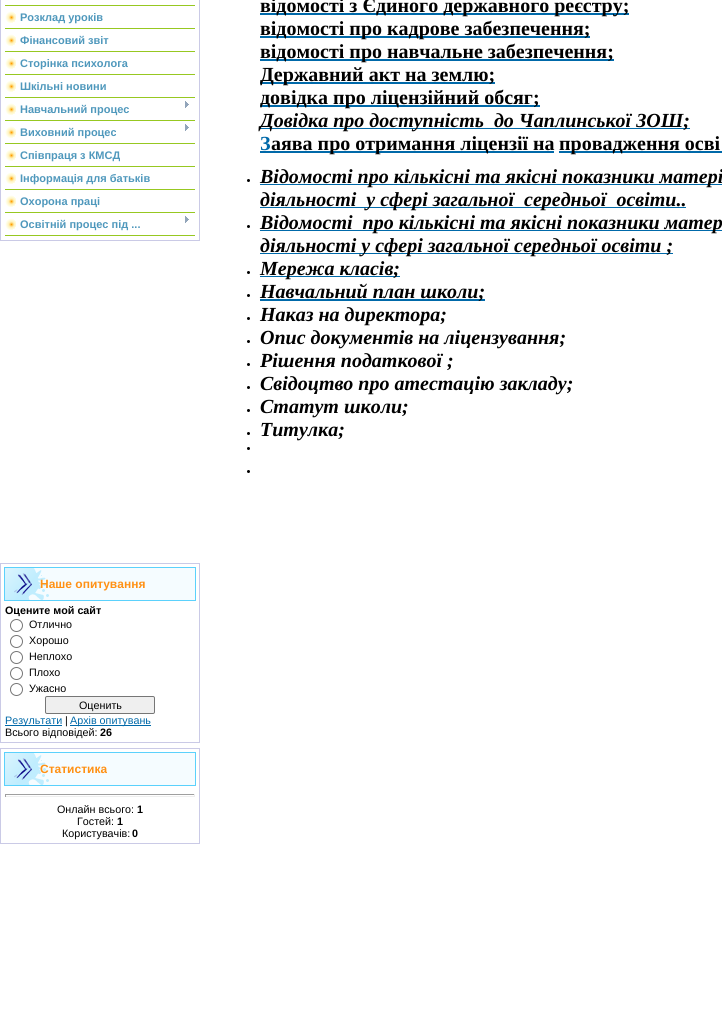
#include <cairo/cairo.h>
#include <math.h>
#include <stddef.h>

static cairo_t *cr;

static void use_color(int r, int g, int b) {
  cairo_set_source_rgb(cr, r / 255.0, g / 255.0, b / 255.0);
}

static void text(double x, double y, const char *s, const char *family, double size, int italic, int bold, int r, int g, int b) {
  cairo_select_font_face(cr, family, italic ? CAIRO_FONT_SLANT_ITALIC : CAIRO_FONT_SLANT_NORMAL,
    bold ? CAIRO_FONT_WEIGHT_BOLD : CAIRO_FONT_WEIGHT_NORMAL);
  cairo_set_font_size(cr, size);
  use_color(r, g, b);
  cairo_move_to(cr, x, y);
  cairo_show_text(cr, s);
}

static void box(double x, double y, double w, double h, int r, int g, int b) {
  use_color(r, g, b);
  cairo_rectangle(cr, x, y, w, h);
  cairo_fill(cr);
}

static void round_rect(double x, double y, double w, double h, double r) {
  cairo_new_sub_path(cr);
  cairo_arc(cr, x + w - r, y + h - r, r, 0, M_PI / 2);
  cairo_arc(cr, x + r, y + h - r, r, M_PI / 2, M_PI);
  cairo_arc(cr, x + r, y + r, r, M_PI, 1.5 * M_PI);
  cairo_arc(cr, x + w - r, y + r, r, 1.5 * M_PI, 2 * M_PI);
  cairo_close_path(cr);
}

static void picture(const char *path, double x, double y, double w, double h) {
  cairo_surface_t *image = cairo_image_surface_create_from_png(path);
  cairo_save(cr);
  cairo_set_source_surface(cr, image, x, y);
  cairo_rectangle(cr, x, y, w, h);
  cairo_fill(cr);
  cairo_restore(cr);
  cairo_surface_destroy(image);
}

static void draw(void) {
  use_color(255, 255, 255);
  cairo_paint(cr);
  cairo_rectangle(cr, 0.5, -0.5, 199, 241);
  use_color(202, 202, 230);
  cairo_set_line_width(cr, 1);
  cairo_stroke(cr);
  box(5, 5, 190, 1, 151, 200, 33);
  picture("img_01.png", 5, 11, 11, 12);
  box(5, 28, 190, 1, 151, 200, 33);
  picture("img_01.png", 5, 34, 11, 12);
  box(5, 51, 190, 1, 151, 200, 33);
  picture("img_01.png", 5, 57, 11, 12);
  box(5, 74, 190, 1, 151, 200, 33);
  picture("img_01.png", 5, 80, 11, 12);
  box(5, 97, 190, 1, 151, 200, 33);
  picture("img_01.png", 5, 103, 11, 12);
  box(5, 120, 190, 1, 151, 200, 33);
  picture("img_02.png", 185, 101, 4, 7);
  picture("img_01.png", 5, 126, 11, 12);
  box(5, 143, 190, 1, 151, 200, 33);
  picture("img_02.png", 185, 124, 4, 7);
  picture("img_01.png", 5, 149, 11, 12);
  box(5, 166, 190, 1, 151, 200, 33);
  picture("img_01.png", 5, 172, 11, 12);
  box(5, 189, 190, 1, 151, 200, 33);
  picture("img_01.png", 5, 195, 11, 12);
  box(5, 212, 190, 1, 151, 200, 33);
  picture("img_01.png", 5, 218, 11, 12);
  box(5, 235, 190, 1, 151, 200, 33);
  picture("img_02.png", 185, 216, 4, 7);
  cairo_rectangle(cr, 0.5, 563.5, 199, 179);
  use_color(202, 202, 230);
  cairo_stroke(cr);
  box(49, 568, 146, 32, 245, 252, 255);
  picture("img_03.png", 5, 568, 44, 32);
  cairo_rectangle(cr, 4.5, 567.5, 191, 33);
  use_color(91, 209, 252);
  cairo_stroke(cr);
  cairo_arc(cr, 16.5, 625.5, 6, 0, 2 * M_PI);
  use_color(118, 118, 118);
  cairo_stroke(cr);
  cairo_arc(cr, 16.5, 641.5, 6, 0, 2 * M_PI);
  cairo_stroke(cr);
  cairo_arc(cr, 16.5, 657.5, 6, 0, 2 * M_PI);
  cairo_stroke(cr);
  cairo_arc(cr, 16.5, 673.5, 6, 0, 2 * M_PI);
  cairo_stroke(cr);
  cairo_arc(cr, 16.5, 689.5, 6, 0, 2 * M_PI);
  cairo_stroke(cr);
  use_color(239, 239, 239);
  round_rect(45.5, 696.5, 109, 17, 1.5);
  cairo_fill_preserve(cr);
  use_color(118, 118, 118);
  cairo_stroke(cr);
  box(5, 725, 57, 1, 0, 105, 169);
  box(70, 725, 81, 1, 0, 105, 169);
  cairo_rectangle(cr, 0.5, 748.5, 199, 95);
  use_color(202, 202, 230);
  cairo_stroke(cr);
  box(49, 753, 146, 32, 245, 252, 255);
  picture("img_03.png", 5, 753, 44, 32);
  cairo_rectangle(cr, 4.5, 752.5, 191, 33);
  use_color(91, 209, 252);
  cairo_stroke(cr);
  box(5, 794, 190, 1, 159, 159, 159);
  box(194, 794, 1, 3, 238, 238, 238);
  box(5, 796, 190, 1, 238, 238, 238);
  box(5, 794, 1, 3, 159, 159, 159);
  box(260, 13, 369, 2, 0, 105, 169);
  box(260, 36, 330, 2, 0, 105, 169);
  box(260, 59, 354, 2, 0, 105, 169);
  box(260, 82, 235, 2, 0, 105, 169);
  box(260, 105, 280, 2, 0, 105, 169);
  box(260, 128, 430, 1, 0, 105, 169);
  box(260, 151, 294, 2, 0, 105, 169);
  box(559, 151, 163, 2, 0, 105, 169);
  use_color(0, 0, 0);
  cairo_arc(cr, 248.5, 180.5, 1.5, 0, 2 * M_PI);
  cairo_fill(cr);
  box(260, 184, 462, 1, 0, 105, 169);
  box(260, 207, 426, 1, 0, 105, 169);
  use_color(0, 0, 0);
  cairo_arc(cr, 248.5, 226.5, 1.5, 0, 2 * M_PI);
  cairo_fill(cr);
  box(260, 230, 462, 1, 0, 105, 169);
  box(260, 253, 413, 1, 0, 105, 169);
  use_color(0, 0, 0);
  cairo_arc(cr, 248.5, 272.5, 1.5, 0, 2 * M_PI);
  cairo_fill(cr);
  box(260, 276, 140, 1, 0, 105, 169);
  use_color(0, 0, 0);
  cairo_arc(cr, 248.5, 295.5, 1.5, 0, 2 * M_PI);
  cairo_fill(cr);
  box(260, 299, 225, 2, 0, 105, 169);
  use_color(0, 0, 0);
  cairo_arc(cr, 248.5, 318.5, 1.5, 0, 2 * M_PI);
  cairo_fill(cr);
  cairo_arc(cr, 248.5, 341.5, 1.5, 0, 2 * M_PI);
  cairo_fill(cr);
  cairo_arc(cr, 248.5, 364.5, 1.5, 0, 2 * M_PI);
  cairo_fill(cr);
  cairo_arc(cr, 248.5, 387.5, 1.5, 0, 2 * M_PI);
  cairo_fill(cr);
  cairo_arc(cr, 248.5, 410.5, 1.5, 0, 2 * M_PI);
  cairo_fill(cr);
  cairo_arc(cr, 248.5, 433.5, 1.5, 0, 2 * M_PI);
  cairo_fill(cr);
  cairo_arc(cr, 248.5, 448.5, 1.5, 0, 2 * M_PI);
  cairo_fill(cr);
  cairo_arc(cr, 248.5, 471.5, 1.5, 0, 2 * M_PI);
  cairo_fill(cr);
  text(20, 21, "Розклад уроків", "Liberation Sans", 11, 0, 1, 79, 152, 188);
  text(20, 44, "Фінансовий звіт", "Liberation Sans", 11, 0, 1, 79, 152, 188);
  text(20, 67, "Сторінка психолога", "Liberation Sans", 11, 0, 1, 79, 152, 188);
  text(20, 90, "Шкільні новини", "Liberation Sans", 11, 0, 1, 79, 152, 188);
  text(20, 113, "Навчальний процес", "Liberation Sans", 11, 0, 1, 79, 152, 188);
  text(20, 136, "Виховний процес", "Liberation Sans", 11, 0, 1, 79, 152, 188);
  text(20, 159, "Співпраця з КМСД", "Liberation Sans", 11, 0, 1, 79, 152, 188);
  text(20, 182, "Інформація для батьків", "Liberation Sans", 11, 0, 1, 79, 152, 188);
  text(20, 205, "Охорона праці", "Liberation Sans", 11, 0, 1, 79, 152, 188);
  text(20, 228, "Освітній процес під ...", "Liberation Sans", 11, 0, 1, 79, 152, 188);
  text(40, 588, "Наше опитування", "Liberation Sans", 12, 0, 1, 255, 145, 21);
  text(5, 614, "Оцените мой сайт", "Liberation Sans", 10.75, 0, 1, 0, 0, 0);
  text(29, 628, "Отлично", "Liberation Sans", 10.75, 0, 0, 0, 0, 0);
  text(29, 644, "Хорошо", "Liberation Sans", 10.75, 0, 0, 0, 0, 0);
  text(29, 660, "Неплохо", "Liberation Sans", 10.75, 0, 0, 0, 0, 0);
  text(29, 676, "Плохо", "Liberation Sans", 10.75, 0, 0, 0, 0, 0);
  text(29, 692, "Ужасно", "Liberation Sans", 10.75, 0, 0, 0, 0, 0);
  text(79, 709, "Оценить", "Liberation Sans", 10.75, 0, 0, 0, 0, 0);
  text(5, 724, "Результати", "Liberation Sans", 10.75, 0, 0, 0, 105, 169);
  text(65, 724, "|", "Liberation Sans", 10.75, 0, 0, 0, 0, 0);
  text(70, 724, "Архів опитувань", "Liberation Sans", 10.75, 0, 0, 0, 105, 169);
  text(5, 736, "Всього відповідей:", "Liberation Sans", 10.75, 0, 0, 0, 0, 0);
  text(100, 736, "26", "Liberation Sans", 10.75, 0, 1, 0, 0, 0);
  text(40, 773, "Статистика", "Liberation Sans", 12, 0, 1, 255, 145, 21);
  text(57, 813, "Онлайн всього:", "Liberation Sans", 10.75, 0, 0, 0, 0, 0);
  text(137, 813, "1", "Liberation Sans", 10.75, 0, 1, 0, 0, 0);
  text(77, 825, "Гостей:", "Liberation Sans", 10.75, 0, 0, 0, 0, 0);
  text(117, 825, "1", "Liberation Sans", 10.75, 0, 1, 0, 0, 0);
  text(62, 837, "Користувачів:", "Liberation Sans", 10.75, 0, 0, 0, 0, 0);
  text(132, 837, "0", "Liberation Sans", 10.75, 0, 1, 0, 0, 0);
  text(260, 12, "відомості з Єдиного державного реєстру;", "Liberation Serif", 20, 0, 1, 0, 0, 0);
  text(260, 35, "відомості про кадрове забезпечення;", "Liberation Serif", 20, 0, 1, 0, 0, 0);
  text(260, 58, "відомості про навчальне забезпечення;", "Liberation Serif", 20, 0, 1, 0, 0, 0);
  text(260, 81, "Державний акт на землю;", "Liberation Serif", 20, 0, 1, 0, 0, 0);
  text(260, 104, "довідка про ліцензійний обсяг;", "Liberation Serif", 20, 0, 1, 0, 0, 0);
  text(260, 127, "Довідка про доступність  до Чаплинської ЗОШ;", "Liberation Serif", 20, 1, 1, 0, 0, 0);
  text(260, 150, "З", "Liberation Serif", 20, 0, 1, 0, 105, 169);
  text(271, 150, "аява про отримання ліцензії на", "Liberation Serif", 20, 0, 1, 0, 0, 0);
  text(559, 150, "провадження осві", "Liberation Serif", 20, 0, 1, 0, 0, 0);
  text(260, 183, "Відомості про кількісні та якісні показники матері", "Liberation Serif", 20, 1, 1, 0, 0, 0);
  text(260, 206, "діяльності  у сфері загальної  середньої  освіти..", "Liberation Serif", 20, 1, 1, 0, 0, 0);
  text(260, 229, "Відомості  про кількісні та якісні показники матер", "Liberation Serif", 20, 1, 1, 0, 0, 0);
  text(260, 252, "діяльності у сфері загальної середньої освіти ;", "Liberation Serif", 20, 1, 1, 0, 0, 0);
  text(260, 275, "Мережа класів;", "Liberation Serif", 20, 1, 1, 0, 0, 0);
  text(260, 298, "Навчальний план школи;", "Liberation Serif", 20, 1, 1, 0, 0, 0);
  text(260, 321, "Наказ на директора;", "Liberation Serif", 20, 1, 1, 0, 0, 0);
  text(260, 344, "Опис документів на ліцензування;", "Liberation Serif", 20, 1, 1, 0, 0, 0);
  text(260, 367, "Рішення податкової ;", "Liberation Serif", 20, 1, 1, 0, 0, 0);
  text(260, 390, "Свідоцтво про атестацію закладу;", "Liberation Serif", 20, 1, 1, 0, 0, 0);
  text(260, 413, "Статут школи;", "Liberation Serif", 20, 1, 1, 0, 0, 0);
  text(260, 436, "Титулка;", "Liberation Serif", 20, 1, 1, 0, 0, 0);
}

int main(void) {
  cairo_surface_t *surface = cairo_image_surface_create(CAIRO_FORMAT_RGB24, 722, 1023);
  cr = cairo_create(surface);
  cairo_font_options_t *options = cairo_font_options_create();
  cairo_font_options_set_hint_metrics(options, CAIRO_HINT_METRICS_OFF);
  cairo_font_options_set_hint_style(options, CAIRO_HINT_STYLE_NONE);
  cairo_set_font_options(cr, options);
  cairo_set_miter_limit(cr, 4);
  draw();
  cairo_surface_write_to_png(surface, "out.png");
  cairo_font_options_destroy(options);
  cairo_destroy(cr);
  cairo_surface_destroy(surface);
  return 0;
}
